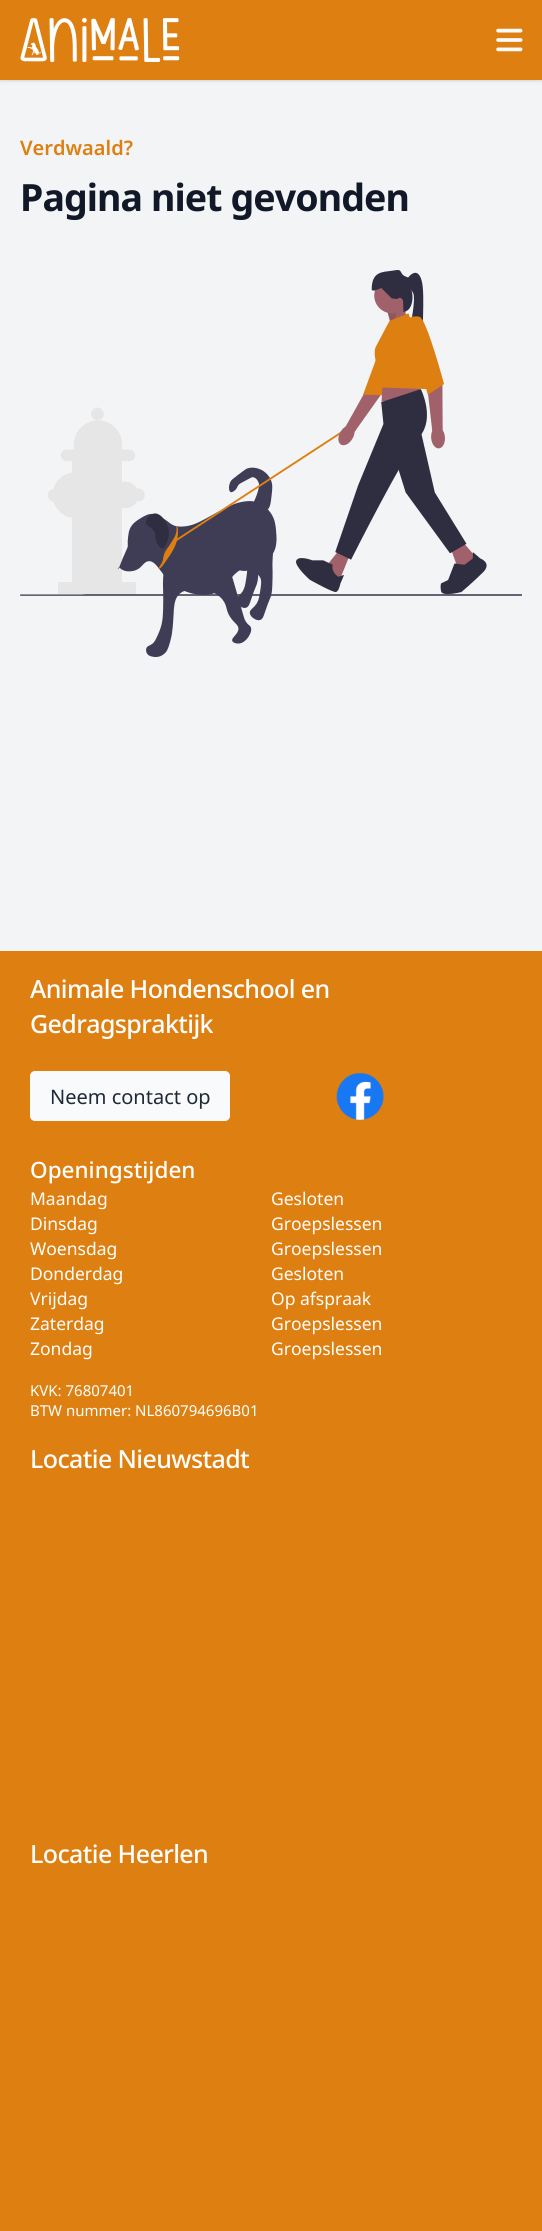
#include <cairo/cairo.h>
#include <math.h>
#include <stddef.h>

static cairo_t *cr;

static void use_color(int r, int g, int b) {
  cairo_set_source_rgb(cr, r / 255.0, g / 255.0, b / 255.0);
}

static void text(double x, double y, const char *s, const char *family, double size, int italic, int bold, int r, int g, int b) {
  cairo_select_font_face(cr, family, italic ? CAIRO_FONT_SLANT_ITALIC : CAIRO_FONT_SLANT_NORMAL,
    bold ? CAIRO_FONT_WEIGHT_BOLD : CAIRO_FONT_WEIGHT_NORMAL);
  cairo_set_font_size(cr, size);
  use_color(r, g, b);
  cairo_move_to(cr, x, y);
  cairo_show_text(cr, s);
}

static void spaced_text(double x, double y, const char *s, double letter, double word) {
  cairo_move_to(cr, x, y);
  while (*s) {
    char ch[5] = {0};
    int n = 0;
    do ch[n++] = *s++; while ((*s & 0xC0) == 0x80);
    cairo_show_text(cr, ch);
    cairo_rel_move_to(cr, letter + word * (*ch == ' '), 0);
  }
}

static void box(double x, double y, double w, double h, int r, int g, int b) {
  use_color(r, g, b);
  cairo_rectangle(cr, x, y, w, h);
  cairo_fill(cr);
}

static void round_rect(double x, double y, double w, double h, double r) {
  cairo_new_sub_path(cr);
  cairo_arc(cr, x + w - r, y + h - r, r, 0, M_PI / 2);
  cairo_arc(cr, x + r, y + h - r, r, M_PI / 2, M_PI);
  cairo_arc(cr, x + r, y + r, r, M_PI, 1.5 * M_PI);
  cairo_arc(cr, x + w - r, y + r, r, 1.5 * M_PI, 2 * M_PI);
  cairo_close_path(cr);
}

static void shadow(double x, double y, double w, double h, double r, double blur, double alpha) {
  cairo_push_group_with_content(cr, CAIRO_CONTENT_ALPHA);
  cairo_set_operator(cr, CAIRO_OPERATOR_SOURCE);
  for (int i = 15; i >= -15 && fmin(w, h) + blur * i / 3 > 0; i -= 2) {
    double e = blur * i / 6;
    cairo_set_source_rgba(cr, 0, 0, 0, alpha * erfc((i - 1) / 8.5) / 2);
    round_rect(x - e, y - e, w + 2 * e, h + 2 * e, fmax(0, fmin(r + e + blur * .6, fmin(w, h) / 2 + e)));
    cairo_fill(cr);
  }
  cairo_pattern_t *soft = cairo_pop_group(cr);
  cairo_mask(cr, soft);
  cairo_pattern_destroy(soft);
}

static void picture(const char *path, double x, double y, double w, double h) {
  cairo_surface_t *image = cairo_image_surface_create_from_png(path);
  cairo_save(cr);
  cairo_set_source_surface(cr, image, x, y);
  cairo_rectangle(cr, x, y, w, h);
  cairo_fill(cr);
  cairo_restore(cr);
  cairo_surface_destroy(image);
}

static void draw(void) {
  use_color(243, 244, 246);
  cairo_paint(cr);
  use_color(0, 0, 0);
  shadow(1, 3, 540, 77, 0, 1, 0.1);
  shadow(0, 1, 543, 80, 0, 2, 0.1);
  box(0, 0, 542, 80, 221, 127, 17);
  picture("img_01.png", 20, 18, 160, 44);
  picture("img_02.png", 496, 28, 27, 24);
  picture("img_03.png", 20, 270, 502, 387);
  box(0, 951, 542, 1280, 221, 127, 17);
  use_color(249, 250, 251);
  round_rect(30, 1071, 200, 50, 5);
  cairo_fill(cr);
  picture("img_04.png", 336, 1072, 48, 48);
  text(20, 155, "Verdwaald?", "Noto Sans SemiBold", 20, 0, 0, 221, 127, 17);
  cairo_select_font_face(cr, "Noto Sans", CAIRO_FONT_SLANT_NORMAL, CAIRO_FONT_WEIGHT_BOLD);
  cairo_set_font_size(cr, 37.5);
  use_color(17, 24, 39);
  spaced_text(20, 211, "Pagina niet gevonden", -0.9, 0);
  cairo_select_font_face(cr, "Noto Sans Medium", CAIRO_FONT_SLANT_NORMAL, CAIRO_FONT_WEIGHT_NORMAL);
  cairo_set_font_size(cr, 25);
  use_color(255, 255, 255);
  spaced_text(30, 998, "Animale Hondenschool en", -0.6, 0);
  spaced_text(30, 1033, "Gedragspraktijk", -0.6, 0);
  text(50, 1104, "Neem contact op", "Noto Sans", 20, 0, 0, 31, 41, 55);
  text(30, 1178, "Openingstijden", "Noto Sans Medium", 22.5, 0, 0, 255, 255, 255);
  text(30, 1205, "Maandag", "Noto Sans", 17.5, 0, 0, 255, 255, 255);
  text(271, 1205, "Gesloten", "Noto Sans", 17.5, 0, 0, 255, 255, 255);
  text(30, 1230, "Dinsdag", "Noto Sans", 17.5, 0, 0, 255, 255, 255);
  text(271, 1230, "Groepslessen", "Noto Sans", 17.5, 0, 0, 255, 255, 255);
  text(30, 1255, "Woensdag", "Noto Sans", 17.5, 0, 0, 255, 255, 255);
  text(271, 1255, "Groepslessen", "Noto Sans", 17.5, 0, 0, 255, 255, 255);
  text(30, 1280, "Donderdag", "Noto Sans", 17.5, 0, 0, 255, 255, 255);
  text(271, 1280, "Gesloten", "Noto Sans", 17.5, 0, 0, 255, 255, 255);
  text(30, 1305, "Vrijdag", "Noto Sans", 17.5, 0, 0, 255, 255, 255);
  text(271, 1305, "Op afspraak", "Noto Sans", 17.5, 0, 0, 255, 255, 255);
  text(30, 1330, "Zaterdag", "Noto Sans", 17.5, 0, 0, 255, 255, 255);
  text(271, 1330, "Groepslessen", "Noto Sans", 17.5, 0, 0, 255, 255, 255);
  text(30, 1355, "Zondag", "Noto Sans", 17.5, 0, 0, 255, 255, 255);
  text(271, 1355, "Groepslessen", "Noto Sans", 17.5, 0, 0, 255, 255, 255);
  text(30, 1396, "KVK: 76807401", "Noto Sans", 15, 0, 0, 255, 255, 255);
  text(30, 1416, "BTW nummer: NL860794696B01", "Noto Sans", 15, 0, 0, 255, 255, 255);
  cairo_select_font_face(cr, "Noto Sans Medium", CAIRO_FONT_SLANT_NORMAL, CAIRO_FONT_WEIGHT_NORMAL);
  cairo_set_font_size(cr, 25);
  spaced_text(30, 1468, "Locatie Nieuwstadt", -0.6, 0);
  spaced_text(30, 1863, "Locatie Heerlen", -0.6, 0);
}

int main(void) {
  cairo_surface_t *surface = cairo_image_surface_create(CAIRO_FORMAT_RGB24, 542, 2231);
  cr = cairo_create(surface);
  cairo_font_options_t *options = cairo_font_options_create();
  cairo_font_options_set_hint_metrics(options, CAIRO_HINT_METRICS_OFF);
  cairo_font_options_set_hint_style(options, CAIRO_HINT_STYLE_NONE);
  cairo_set_font_options(cr, options);
  cairo_set_miter_limit(cr, 4);
  draw();
  cairo_surface_write_to_png(surface, "out.png");
  cairo_font_options_destroy(options);
  cairo_destroy(cr);
  cairo_surface_destroy(surface);
  return 0;
}
